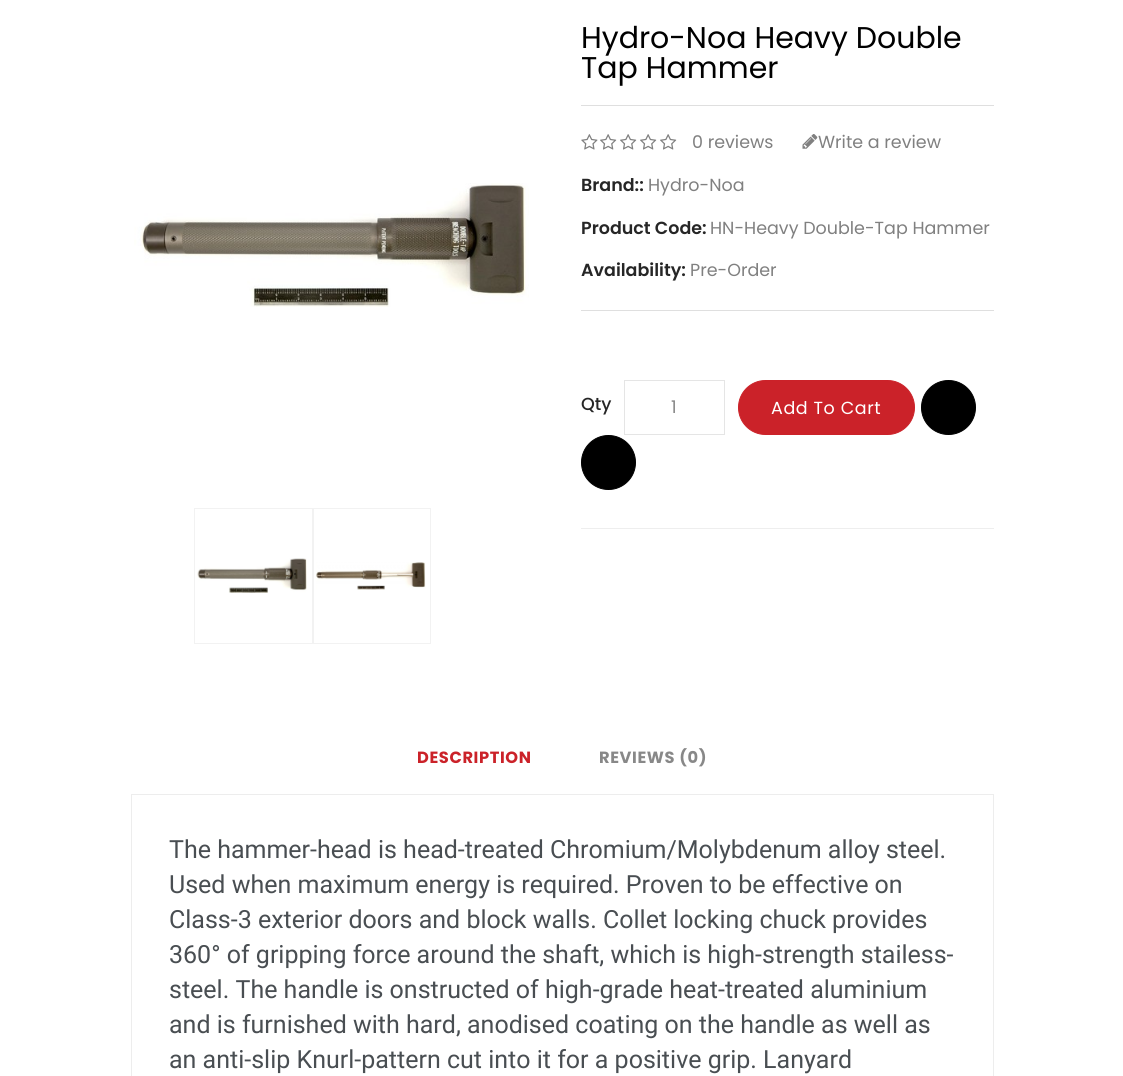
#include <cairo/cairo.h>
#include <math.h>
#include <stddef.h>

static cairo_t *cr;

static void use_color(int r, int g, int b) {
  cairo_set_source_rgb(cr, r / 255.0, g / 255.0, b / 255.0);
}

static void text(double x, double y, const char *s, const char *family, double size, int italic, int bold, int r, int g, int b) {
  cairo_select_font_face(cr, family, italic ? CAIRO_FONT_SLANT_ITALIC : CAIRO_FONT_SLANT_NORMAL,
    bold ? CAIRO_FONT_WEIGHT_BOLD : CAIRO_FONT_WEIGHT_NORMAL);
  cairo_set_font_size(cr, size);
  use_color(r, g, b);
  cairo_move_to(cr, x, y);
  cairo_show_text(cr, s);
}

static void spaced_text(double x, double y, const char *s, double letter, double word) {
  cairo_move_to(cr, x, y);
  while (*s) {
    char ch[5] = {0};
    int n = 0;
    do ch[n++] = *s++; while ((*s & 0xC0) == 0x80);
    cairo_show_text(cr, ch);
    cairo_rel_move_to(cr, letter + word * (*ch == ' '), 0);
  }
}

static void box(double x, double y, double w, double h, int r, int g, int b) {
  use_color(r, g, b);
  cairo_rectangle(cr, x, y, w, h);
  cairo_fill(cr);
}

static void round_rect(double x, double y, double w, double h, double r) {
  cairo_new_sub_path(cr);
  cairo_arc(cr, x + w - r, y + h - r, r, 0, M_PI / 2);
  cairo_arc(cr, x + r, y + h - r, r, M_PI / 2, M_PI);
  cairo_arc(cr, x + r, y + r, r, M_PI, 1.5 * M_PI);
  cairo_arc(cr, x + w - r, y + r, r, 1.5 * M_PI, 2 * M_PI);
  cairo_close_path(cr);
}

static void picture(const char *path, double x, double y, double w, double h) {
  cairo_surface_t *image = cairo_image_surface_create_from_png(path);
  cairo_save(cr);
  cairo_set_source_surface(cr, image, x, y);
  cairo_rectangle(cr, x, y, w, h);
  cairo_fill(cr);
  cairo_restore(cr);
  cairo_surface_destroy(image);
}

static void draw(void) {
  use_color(255, 255, 255);
  cairo_paint(cr);
  picture("img_01.png", 134, 183, 395, 124);
  cairo_rectangle(cr, 194.5, 508.5, 118, 135);
  use_color(242, 242, 242);
  cairo_set_line_width(cr, 1);
  cairo_stroke(cr);
  picture("img_02.png", 197, 558, 110, 35);
  cairo_rectangle(cr, 313.5, 508.5, 117, 135);
  cairo_stroke(cr);
  picture("img_03.png", 316, 562, 110, 28);
  box(581, 105, 413, 1, 223, 223, 223);
  picture("img_04.png", 581, 134, 17, 16);
  picture("img_05.png", 600, 134, 17, 16);
  picture("img_05.png", 620, 134, 17, 16);
  picture("img_05.png", 640, 134, 17, 16);
  picture("img_05.png", 660, 134, 17, 16);
  picture("img_06.png", 802, 134, 16, 15);
  box(581, 310, 413, 1, 223, 223, 223);
  cairo_rectangle(cr, 624.5, 380.5, 100, 54);
  use_color(229, 229, 229);
  cairo_stroke(cr);
  use_color(203, 34, 41);
  round_rect(738.5, 380.5, 176, 54, 27);
  cairo_fill_preserve(cr);
  cairo_stroke(cr);
  use_color(0, 0, 0);
  cairo_arc(cr, 948.5, 407.5, 27, 0, 2 * M_PI);
  cairo_fill_preserve(cr);
  cairo_stroke(cr);
  cairo_arc(cr, 608.5, 462.5, 27, 0, 2 * M_PI);
  cairo_fill_preserve(cr);
  cairo_stroke(cr);
  box(581, 528, 413, 1, 238, 238, 238);
  cairo_rectangle(cr, 131.5, 794.5, 862, 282);
  use_color(237, 237, 237);
  cairo_stroke(cr);
  text(581, 48, "Hydro-Noa Heavy Double", "Poppins", 30, 0, 0, 0, 0, 0);
  text(581, 78, "Tap Hammer", "Poppins", 30, 0, 0, 0, 0, 0);
  text(692, 148, "0 reviews", "Poppins", 17.5, 0, 0, 128, 128, 128);
  text(818, 148, "Write a review", "Poppins", 17.5, 0, 0, 128, 128, 128);
  text(581, 191, "Brand::", "Poppins SemiBold", 17.5, 0, 0, 38, 38, 38);
  text(648, 191, "Hydro-Noa", "Poppins", 17.5, 0, 0, 128, 128, 128);
  text(581, 234, "Product Code:", "Poppins SemiBold", 17.5, 0, 0, 38, 38, 38);
  text(710, 234, "HN-Heavy Double-Tap Hammer", "Poppins", 17.5, 0, 0, 128, 128, 128);
  text(581, 276, "Availability:", "Poppins SemiBold", 17.5, 0, 0, 38, 38, 38);
  text(690, 276, "Pre-Order", "Poppins", 17.5, 0, 0, 128, 128, 128);
  text(581, 410, "Qty", "Poppins Medium", 17.5, 0, 0, 38, 38, 38);
  text(671, 413, "1", "Poppins", 17.5, 0, 0, 136, 136, 136);
  use_color(255, 255, 255);
  spaced_text(771, 414, "Add To Cart", 0.6, 0);
  cairo_select_font_face(cr, "Poppins", CAIRO_FONT_SLANT_NORMAL, CAIRO_FONT_WEIGHT_BOLD);
  cairo_set_font_size(cr, 16.25);
  use_color(203, 34, 41);
  spaced_text(417, 763, "DESCRIPTION", 0.6, 0);
  use_color(136, 136, 136);
  spaced_text(599, 763, "REVIEWS (0)", 0.6, 0);
  text(169, 858, "The hammer-head is head-treated Chromium/Molybdenum alloy steel.", "Roboto", 25, 0, 0, 73, 78, 82);
  text(169, 893, "Used when maximum energy is required. Proven to be effective on", "Roboto", 25, 0, 0, 73, 78, 82);
  text(169, 928, "Class-3 exterior doors and block walls. Collet locking chuck provides", "Roboto", 25, 0, 0, 73, 78, 82);
  text(169, 963, "360° of gripping force around the shaft, which is high-strength stailess-", "Roboto", 25, 0, 0, 73, 78, 82);
  text(169, 998, "steel. The handle is onstructed of high-grade heat-treated aluminium", "Roboto", 25, 0, 0, 73, 78, 82);
  text(169, 1033, "and is furnished with hard, anodised coating on the handle as well as", "Roboto", 25, 0, 0, 73, 78, 82);
  text(169, 1068, "an anti-slip Knurl-pattern cut into it for a positive grip. Lanyard", "Roboto", 25, 0, 0, 73, 78, 82);
}

int main(void) {
  cairo_surface_t *surface = cairo_image_surface_create(CAIRO_FORMAT_RGB24, 1123, 1076);
  cr = cairo_create(surface);
  cairo_font_options_t *options = cairo_font_options_create();
  cairo_font_options_set_hint_metrics(options, CAIRO_HINT_METRICS_OFF);
  cairo_font_options_set_hint_style(options, CAIRO_HINT_STYLE_NONE);
  cairo_set_font_options(cr, options);
  cairo_set_miter_limit(cr, 4);
  draw();
  cairo_surface_write_to_png(surface, "out.png");
  cairo_font_options_destroy(options);
  cairo_destroy(cr);
  cairo_surface_destroy(surface);
  return 0;
}
